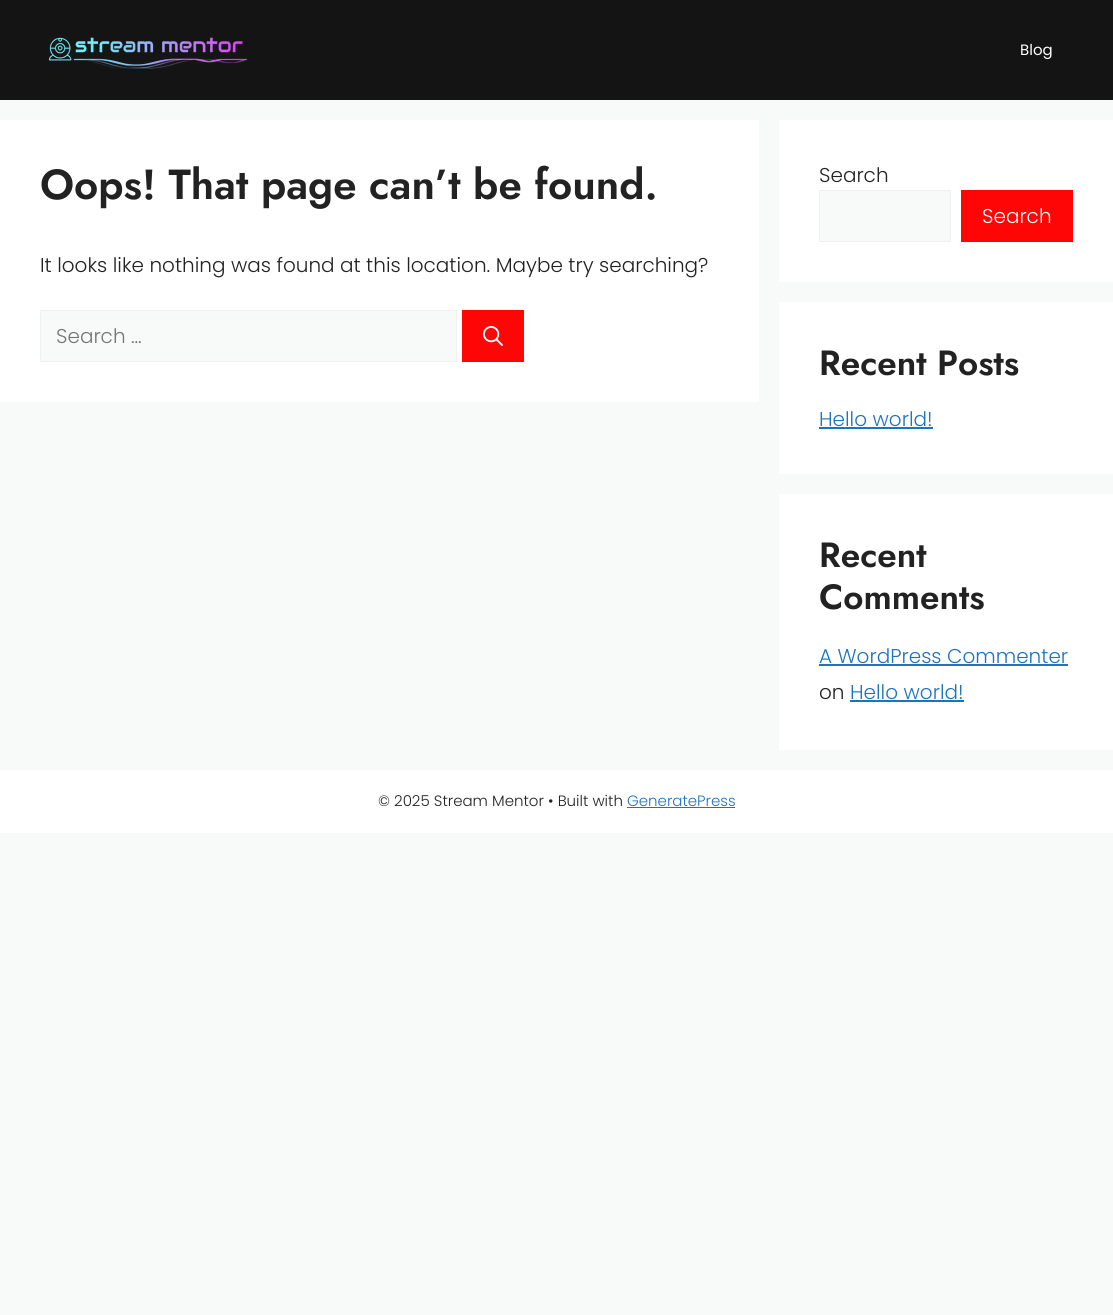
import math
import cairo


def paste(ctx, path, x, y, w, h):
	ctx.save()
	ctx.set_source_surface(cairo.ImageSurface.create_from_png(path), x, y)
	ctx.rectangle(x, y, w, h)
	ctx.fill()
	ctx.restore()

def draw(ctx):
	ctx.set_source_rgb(0.969, 0.973, 0.976)
	ctx.paint()
	ctx.set_source_rgb(0.082, 0.082, 0.082)
	ctx.rectangle(0, 0, 1113, 100)
	ctx.fill()
	paste(ctx, 'media/1.png', 48, 37, 200, 32)
	ctx.select_font_face('Poppins')
	ctx.set_font_size(15)
	ctx.set_source_rgb(1, 1, 1)
	ctx.move_to(1020, 55)
	ctx.show_text('Blog')
	ctx.rectangle(0, 120, 759, 282)
	ctx.fill()
	ctx.select_font_face('Jost SemiBold')
	ctx.set_font_size(42)
	ctx.set_source_rgb(0.133, 0.133, 0.133)
	ctx.move_to(40, 199)
	ctx.show_text('Oops! That page can’t be found.')
	ctx.select_font_face('Poppins Light')
	ctx.set_font_size(20)
	ctx.move_to(40, 272)
	ctx.show_text('It looks like nothing was found at this location. Maybe try searching?')
	ctx.set_source_rgb(0.969, 0.973, 0.976)
	ctx.rectangle(40.5, 310.5, 416, 51)
	ctx.fill_preserve()
	ctx.set_source_rgb(0.941, 0.941, 0.941)
	ctx.set_line_width(1)
	ctx.stroke()
	ctx.set_source_rgb(0.459, 0.459, 0.459)
	ctx.move_to(56, 343)
	ctx.show_text('Search …')
	ctx.set_source_rgb(1, 0.024, 0.024)
	ctx.rectangle(462, 310, 62, 52)
	ctx.fill()
	paste(ctx, 'media/2.png', 483, 326, 20, 20)
	ctx.set_source_rgb(1, 1, 1)
	ctx.rectangle(779, 120, 334, 162)
	ctx.fill()
	ctx.set_source_rgb(0.133, 0.133, 0.133)
	ctx.move_to(819, 182)
	ctx.show_text('Search')
	ctx.set_source_rgb(0.969, 0.973, 0.976)
	ctx.rectangle(819.5, 190.5, 131, 51)
	ctx.fill_preserve()
	ctx.set_source_rgb(0.941, 0.941, 0.941)
	ctx.stroke()
	ctx.set_source_rgb(1, 0.024, 0.024)
	ctx.rectangle(961, 190, 112, 52)
	ctx.fill()
	ctx.set_source_rgb(1, 1, 1)
	ctx.move_to(982, 223)
	ctx.show_text('Search')
	ctx.rectangle(779, 302, 334, 172)
	ctx.fill()
	ctx.select_font_face('Jost SemiBold')
	ctx.set_font_size(35)
	ctx.set_source_rgb(0.133, 0.133, 0.133)
	ctx.move_to(819, 375)
	ctx.show_text('Recent Posts')
	ctx.select_font_face('Poppins Light')
	ctx.set_font_size(20)
	ctx.set_source_rgb(0.118, 0.451, 0.745)
	ctx.move_to(819, 426)
	ctx.show_text('Hello world!')
	ctx.rectangle(819, 427, 114, 2)
	ctx.fill()
	ctx.set_source_rgb(1, 1, 1)
	ctx.rectangle(779, 494, 334, 256)
	ctx.fill()
	ctx.select_font_face('Jost SemiBold')
	ctx.set_font_size(35)
	ctx.set_source_rgb(0.133, 0.133, 0.133)
	ctx.move_to(819, 567)
	ctx.show_text('Recent')
	ctx.move_to(819, 609)
	ctx.show_text('Comments')
	ctx.select_font_face('Poppins Light')
	ctx.set_font_size(20)
	ctx.set_source_rgb(0.118, 0.451, 0.745)
	ctx.move_to(819, 663)
	ctx.show_text('A WordPress Commenter')
	ctx.rectangle(819, 664, 249, 2)
	ctx.fill()
	ctx.set_source_rgb(0.133, 0.133, 0.133)
	ctx.move_to(819, 699)
	ctx.show_text('on')
	ctx.set_source_rgb(0.118, 0.451, 0.745)
	ctx.move_to(850, 699)
	ctx.show_text('Hello world!')
	ctx.rectangle(850, 700, 114, 2)
	ctx.fill()
	ctx.set_source_rgb(1, 1, 1)
	ctx.rectangle(0, 770, 1113, 63)
	ctx.fill()
	ctx.set_font_size(15)
	ctx.set_source_rgb(0.133, 0.133, 0.133)
	ctx.move_to(378, 806)
	ctx.show_text('© 2025 Stream Mentor • Built with')
	ctx.set_source_rgb(0.118, 0.451, 0.745)
	ctx.move_to(627, 806)
	ctx.show_text('GeneratePress')
	ctx.rectangle(627, 807, 108, 1)
	ctx.fill()


surface = cairo.ImageSurface(cairo.FORMAT_RGB24, 1113, 1315)
ctx = cairo.Context(surface)
options = cairo.FontOptions()
options.set_hint_metrics(cairo.HINT_METRICS_OFF)
options.set_hint_style(cairo.HINT_STYLE_NONE)
ctx.set_font_options(options)
ctx.set_miter_limit(4)
draw(ctx)
surface.write_to_png('image.png')
